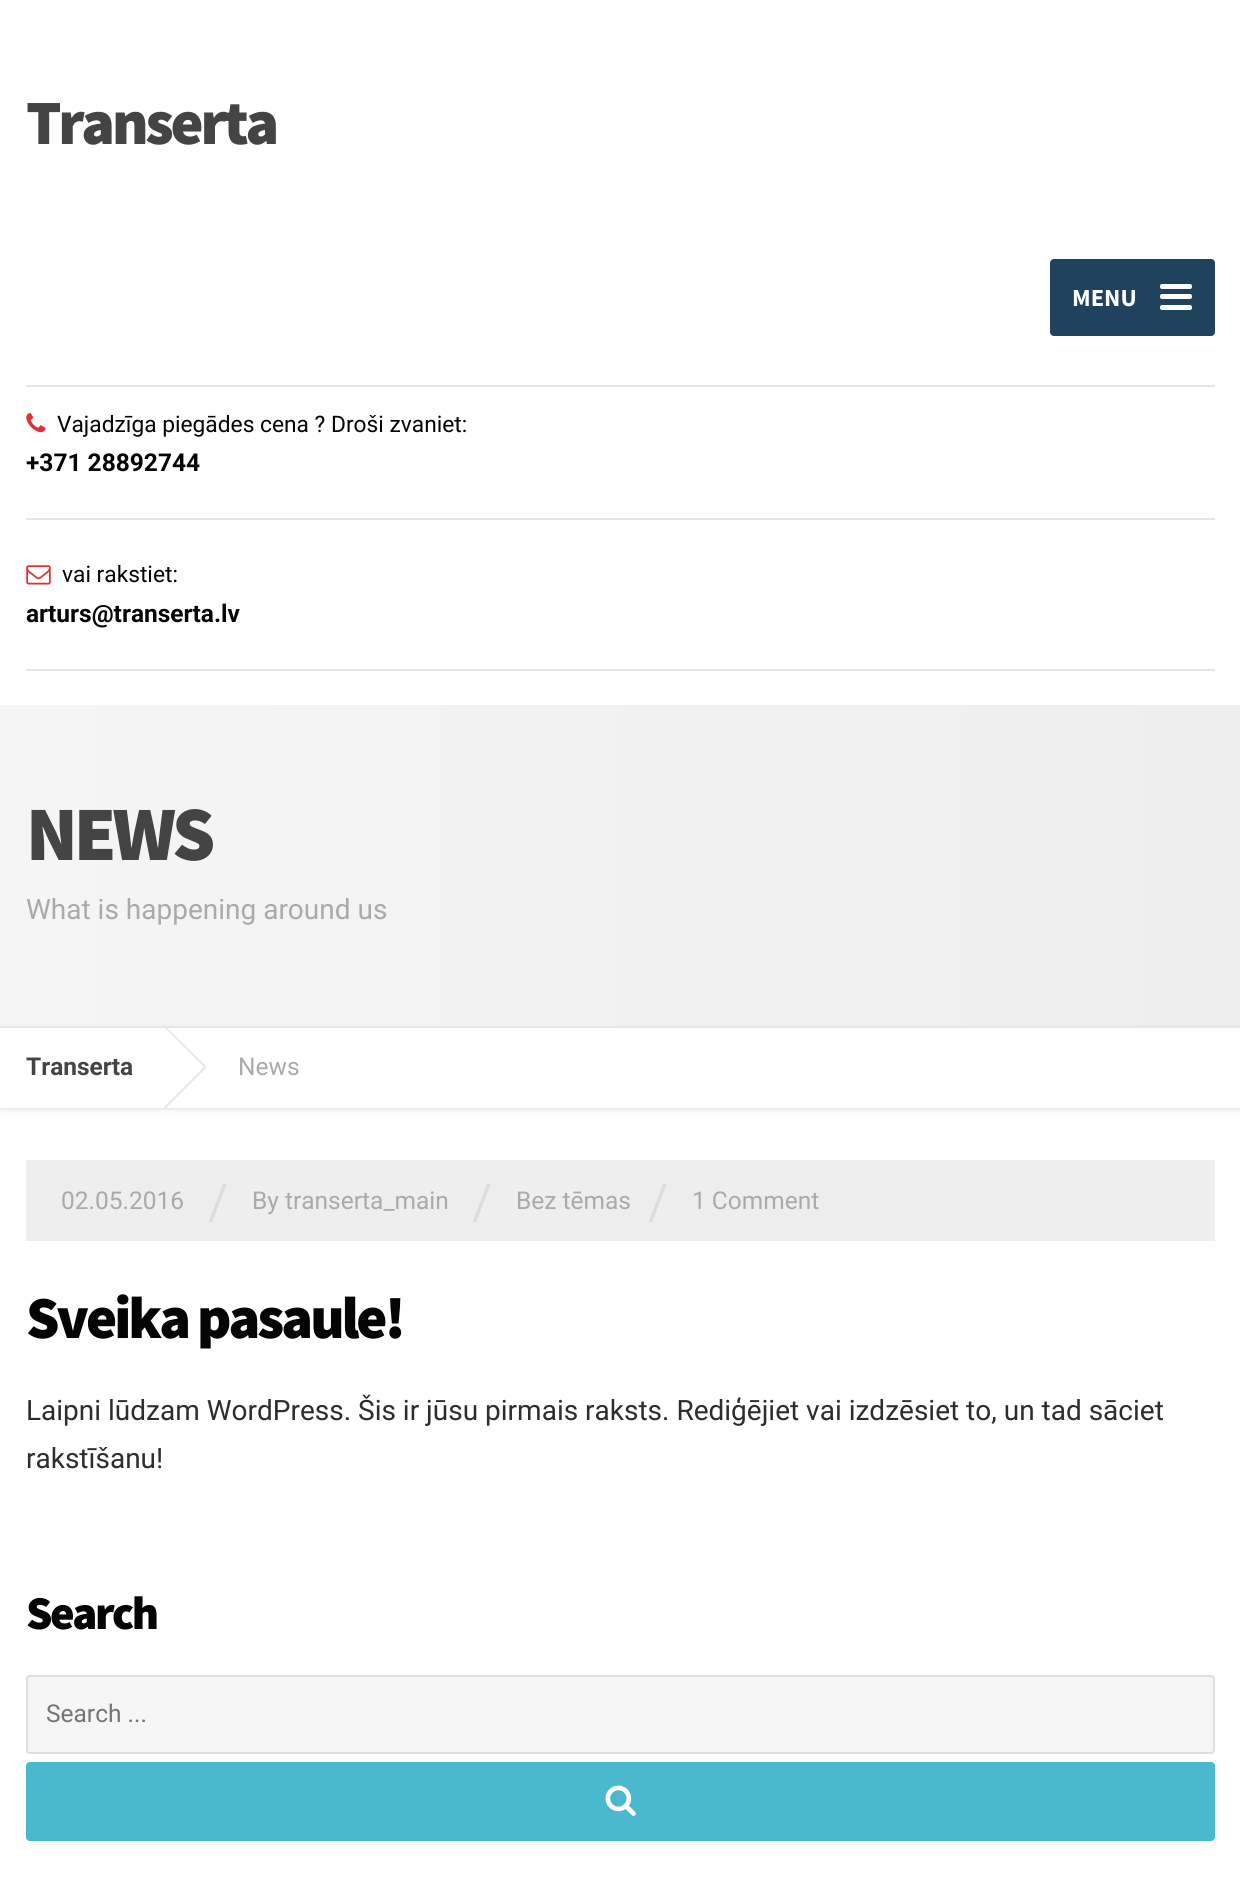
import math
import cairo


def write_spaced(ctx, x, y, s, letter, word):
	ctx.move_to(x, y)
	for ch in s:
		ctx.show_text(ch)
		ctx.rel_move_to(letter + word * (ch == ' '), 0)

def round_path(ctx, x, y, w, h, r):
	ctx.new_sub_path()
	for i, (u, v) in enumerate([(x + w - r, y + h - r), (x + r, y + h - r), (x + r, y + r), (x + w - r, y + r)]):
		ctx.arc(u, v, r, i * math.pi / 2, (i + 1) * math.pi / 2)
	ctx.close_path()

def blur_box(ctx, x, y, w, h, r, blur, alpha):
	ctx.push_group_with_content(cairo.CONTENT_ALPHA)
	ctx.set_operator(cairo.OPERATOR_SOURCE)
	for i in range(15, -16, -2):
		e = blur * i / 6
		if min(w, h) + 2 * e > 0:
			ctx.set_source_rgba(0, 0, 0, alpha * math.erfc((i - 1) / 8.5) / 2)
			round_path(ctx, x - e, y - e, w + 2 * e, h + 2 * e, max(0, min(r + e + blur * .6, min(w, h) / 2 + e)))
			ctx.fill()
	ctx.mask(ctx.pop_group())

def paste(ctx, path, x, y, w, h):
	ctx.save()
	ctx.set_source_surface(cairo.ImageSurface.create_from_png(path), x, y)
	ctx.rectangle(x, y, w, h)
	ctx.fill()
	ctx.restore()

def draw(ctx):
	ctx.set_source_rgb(1, 1, 1)
	ctx.paint()
	ctx.set_source_rgb(0.902, 0.902, 0.902)
	ctx.rectangle(26, 385, 1189, 2)
	ctx.fill()
	ctx.select_font_face('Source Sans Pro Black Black')
	ctx.set_font_size(63)
	ctx.set_source_rgb(0.267, 0.267, 0.267)
	write_spaced(ctx, 26, 144, 'Transerta', -3.25, 0)
	ctx.set_source_rgb(0.122, 0.259, 0.365)
	round_path(ctx, 1050, 259, 165, 77, 4)
	ctx.fill()
	ctx.select_font_face('Source Sans Pro', cairo.FONT_SLANT_NORMAL, cairo.FONT_WEIGHT_BOLD)
	ctx.set_font_size(24.5)
	ctx.set_source_rgb(1, 1, 1)
	ctx.move_to(1072, 306)
	ctx.show_text('MENU')
	round_path(ctx, 1160, 284, 32, 5, 2)
	ctx.fill()
	round_path(ctx, 1160, 294, 32, 5, 2)
	ctx.fill()
	round_path(ctx, 1160, 305, 32, 5, 2)
	ctx.fill()
	ctx.set_source_rgb(0.902, 0.902, 0.902)
	ctx.rectangle(26, 518, 1189, 2)
	ctx.fill()
	paste(ctx, 'media/1.png', 26, 413, 20, 20)
	ctx.select_font_face('Roboto')
	ctx.set_font_size(22.75)
	ctx.set_source_rgb(0.02, 0.02, 0.02)
	ctx.move_to(57, 432)
	ctx.show_text('Vajadzīga piegādes cena ? Droši zvaniet:')
	ctx.select_font_face('Roboto', cairo.FONT_SLANT_NORMAL, cairo.FONT_WEIGHT_BOLD)
	ctx.set_font_size(24.5)
	ctx.move_to(26, 471)
	ctx.show_text('+371 28892744')
	ctx.set_source_rgb(0.902, 0.902, 0.902)
	ctx.rectangle(26, 669, 1189, 2)
	ctx.fill()
	paste(ctx, 'media/2.png', 26, 565, 25, 20)
	ctx.select_font_face('Roboto')
	ctx.set_font_size(22.75)
	ctx.set_source_rgb(0.02, 0.02, 0.02)
	ctx.move_to(62, 582)
	ctx.show_text('vai rakstiet:')
	ctx.select_font_face('Roboto', cairo.FONT_SLANT_NORMAL, cairo.FONT_WEIGHT_BOLD)
	ctx.set_font_size(24.5)
	ctx.move_to(26, 622)
	ctx.show_text('arturs@transerta.lv')
	gradient = cairo.LinearGradient(0, 865, 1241, 865)
	gradient.add_color_stop_rgba(0, 0.961, 0.961, 0.961, 1)
	gradient.add_color_stop_rgba(1, 0.933, 0.933, 0.933, 1)
	ctx.set_source(gradient)
	ctx.rectangle(0, 705, 1240, 321)
	ctx.fill()
	ctx.select_font_face('Source Sans Pro Black Black')
	ctx.set_font_size(77)
	ctx.set_source_rgb(0.267, 0.267, 0.267)
	write_spaced(ctx, 26, 860, 'NEWS', -4, 0)
	ctx.select_font_face('Roboto')
	ctx.set_font_size(28)
	ctx.set_source_rgb(0.667, 0.667, 0.667)
	ctx.move_to(26, 919)
	ctx.show_text('What is happening around us')
	ctx.set_source_rgb(0.902, 0.902, 0.902)
	blur_box(ctx, 0, 1027, 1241, 83, 0, 2, 1)
	ctx.set_source_rgb(1, 1, 1)
	ctx.rectangle(0, 1028, 1240, 80)
	ctx.fill()
	ctx.set_source_rgb(0.902, 0.902, 0.902)
	ctx.rectangle(0, 1026, 1240, 2)
	ctx.fill()
	ctx.select_font_face('Roboto', cairo.FONT_SLANT_NORMAL, cairo.FONT_WEIGHT_BOLD)
	ctx.set_font_size(24.5)
	ctx.set_source_rgb(0.267, 0.267, 0.267)
	ctx.move_to(26, 1075)
	ctx.show_text('Transerta')
	ctx.set_source_rgb(0.902, 0.902, 0.902)
	ctx.new_path()
	ctx.move_to(164, 1027)
	ctx.line_to(165, 1026)
	ctx.line_to(206, 1066)
	ctx.line_to(205, 1068)
	ctx.close_path()
	ctx.fill()
	ctx.new_path()
	ctx.move_to(205, 1066)
	ctx.line_to(206, 1068)
	ctx.line_to(165, 1109)
	ctx.line_to(164, 1107)
	ctx.close_path()
	ctx.fill()
	ctx.select_font_face('Roboto')
	ctx.set_source_rgb(0.667, 0.667, 0.667)
	ctx.move_to(238, 1075)
	ctx.show_text('News')
	ctx.set_source_rgb(0.933, 0.933, 0.933)
	ctx.rectangle(26, 1160, 1189, 81)
	ctx.fill()
	ctx.set_source_rgb(0.667, 0.667, 0.667)
	ctx.move_to(61, 1209)
	ctx.show_text('02.05.2016')
	ctx.set_font_size(49)
	ctx.set_source_rgb(0.867, 0.867, 0.867)
	ctx.move_to(208, 1219)
	ctx.show_text('/')
	ctx.set_font_size(24.5)
	ctx.set_source_rgb(0.667, 0.667, 0.667)
	ctx.move_to(252, 1209)
	ctx.show_text('By transerta_main')
	ctx.set_font_size(49)
	ctx.set_source_rgb(0.867, 0.867, 0.867)
	ctx.move_to(472, 1219)
	ctx.show_text('/')
	ctx.set_font_size(24.5)
	ctx.set_source_rgb(0.667, 0.667, 0.667)
	ctx.move_to(516, 1209)
	ctx.show_text('Bez tēmas')
	ctx.set_font_size(49)
	ctx.set_source_rgb(0.867, 0.867, 0.867)
	ctx.move_to(648, 1219)
	ctx.show_text('/')
	ctx.set_font_size(24.5)
	ctx.set_source_rgb(0.667, 0.667, 0.667)
	ctx.move_to(692, 1209)
	ctx.show_text('1 Comment')
	ctx.select_font_face('Source Sans Pro Black Black')
	ctx.set_font_size(59.5)
	ctx.set_source_rgb(0.02, 0.02, 0.02)
	write_spaced(ctx, 26, 1338, 'Sveika pasaule!', -3, 0)
	ctx.select_font_face('Roboto')
	ctx.set_font_size(28)
	ctx.set_source_rgb(0.176, 0.176, 0.176)
	ctx.move_to(26, 1420)
	ctx.show_text('Laipni lūdzam WordPress. Šis ir jūsu pirmais raksts. Rediģējiet vai izdzēsiet to, un tad sāciet')
	ctx.move_to(26, 1468)
	ctx.show_text('rakstīšanu!')
	ctx.select_font_face('Source Sans Pro Black Black')
	ctx.set_font_size(47)
	ctx.set_source_rgb(0.02, 0.02, 0.02)
	write_spaced(ctx, 26, 1629, 'Search', -2.5, 0)
	ctx.set_source_rgb(0.961, 0.961, 0.961)
	round_path(ctx, 26, 1675, 1189, 79, 4)
	ctx.fill()
	round_path(ctx, 27, 1676, 1187, 77, 3)
	ctx.set_source_rgba(0, 0, 0, 0.1)
	ctx.stroke()
	ctx.select_font_face('Roboto')
	ctx.set_font_size(24.5)
	ctx.set_source_rgb(0.459, 0.459, 0.459)
	ctx.move_to(46, 1722)
	ctx.show_text('Search ...')
	ctx.set_source_rgb(0.29, 0.725, 0.812)
	round_path(ctx, 26, 1762, 1189, 79, 4)
	ctx.fill()
	paste(ctx, 'media/3.png', 605, 1785, 31, 31)


surface = cairo.ImageSurface(cairo.FORMAT_RGB24, 1240, 1879)
ctx = cairo.Context(surface)
options = cairo.FontOptions()
options.set_hint_metrics(cairo.HINT_METRICS_OFF)
options.set_hint_style(cairo.HINT_STYLE_NONE)
ctx.set_font_options(options)
ctx.set_miter_limit(4)
draw(ctx)
surface.write_to_png('image.png')
